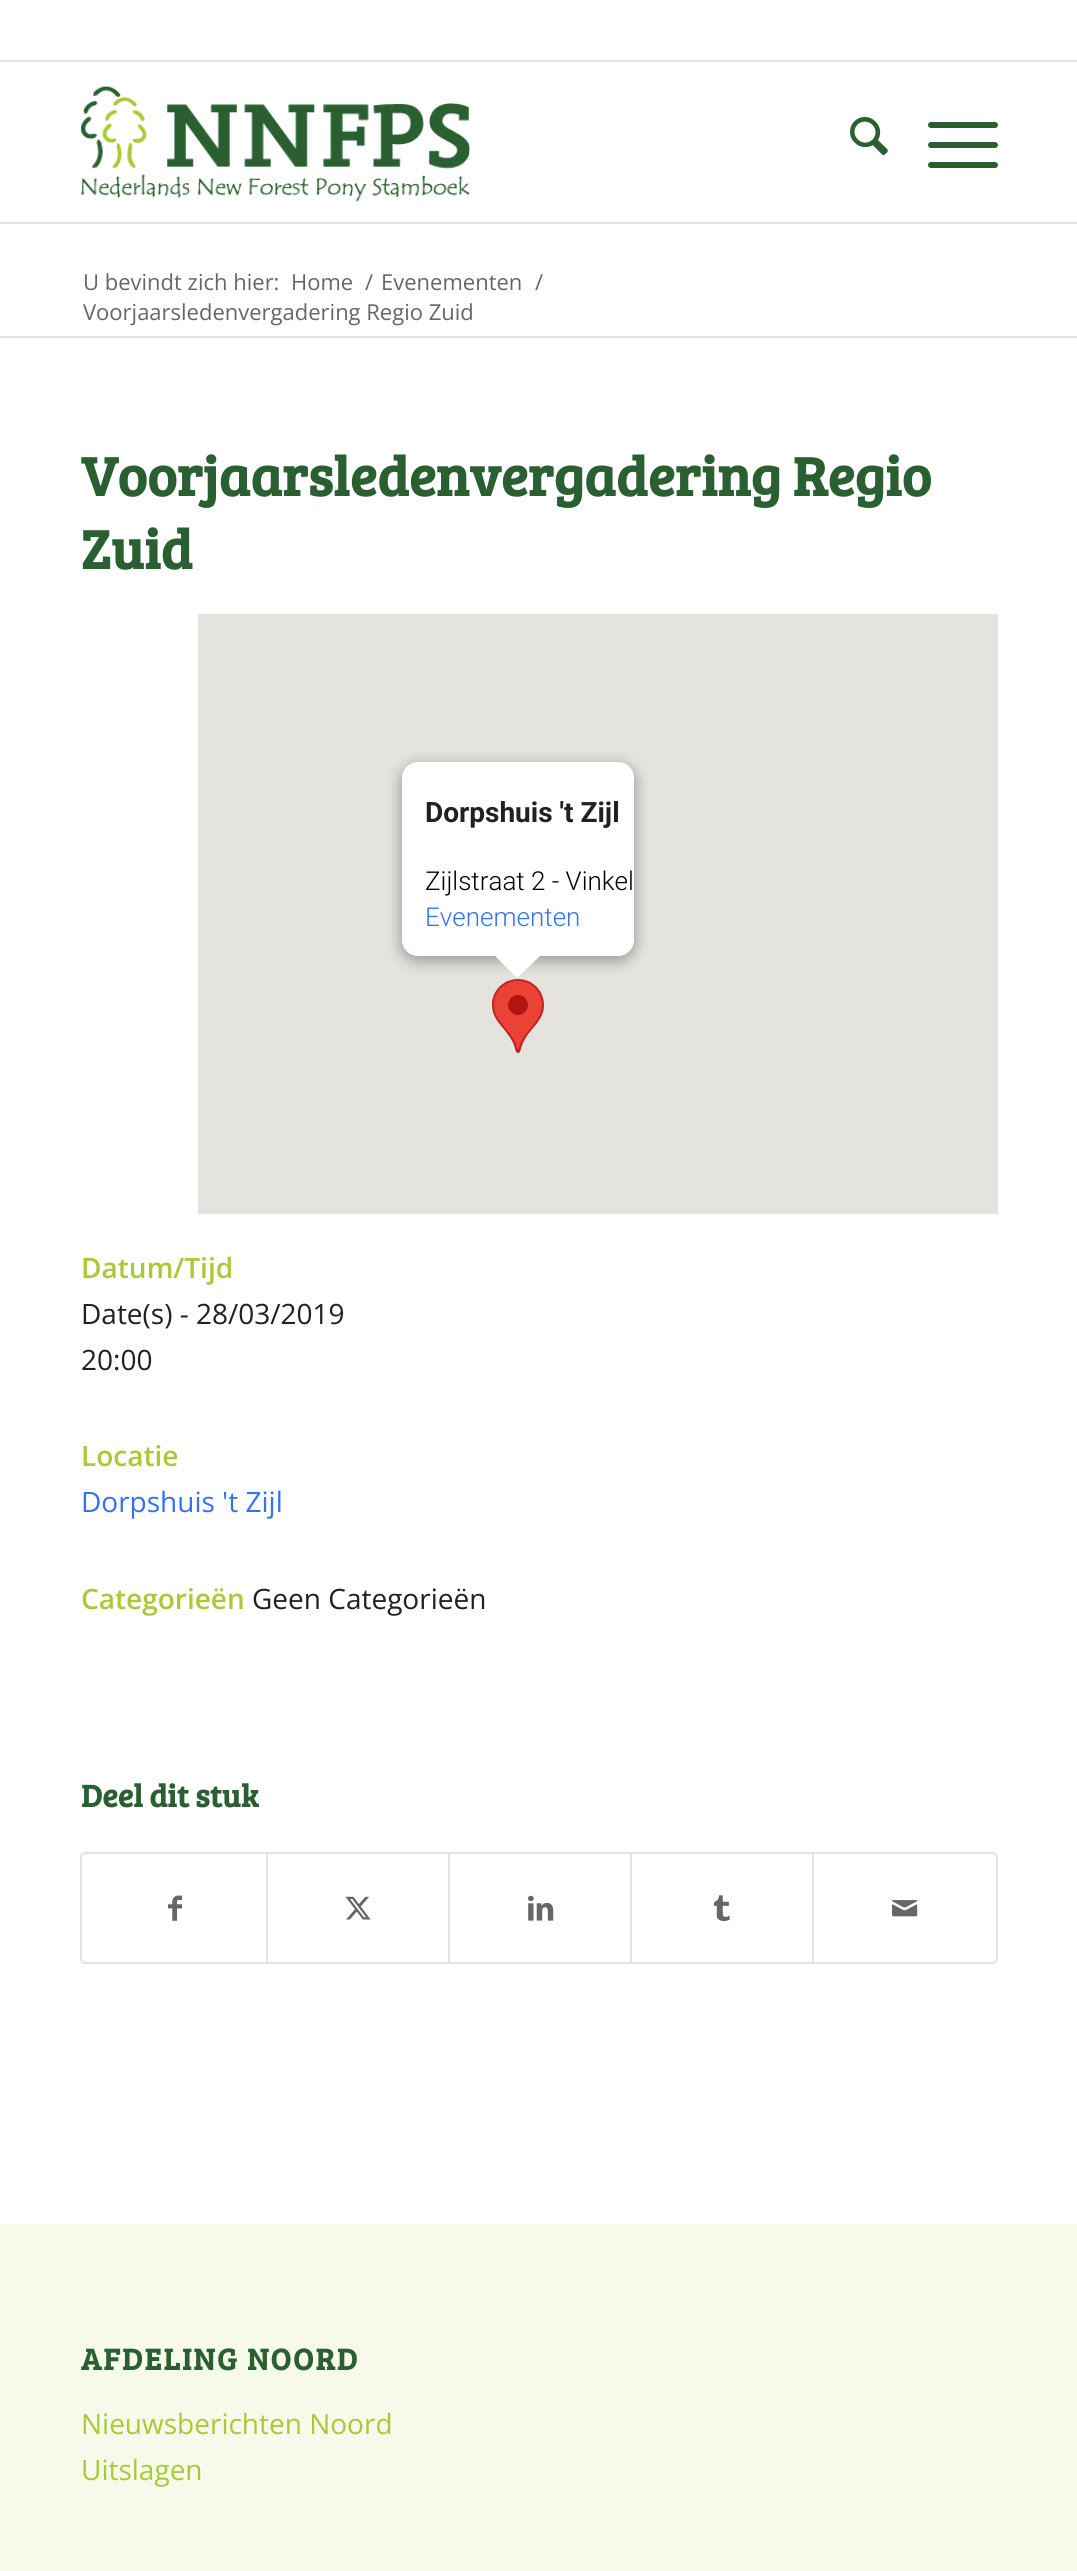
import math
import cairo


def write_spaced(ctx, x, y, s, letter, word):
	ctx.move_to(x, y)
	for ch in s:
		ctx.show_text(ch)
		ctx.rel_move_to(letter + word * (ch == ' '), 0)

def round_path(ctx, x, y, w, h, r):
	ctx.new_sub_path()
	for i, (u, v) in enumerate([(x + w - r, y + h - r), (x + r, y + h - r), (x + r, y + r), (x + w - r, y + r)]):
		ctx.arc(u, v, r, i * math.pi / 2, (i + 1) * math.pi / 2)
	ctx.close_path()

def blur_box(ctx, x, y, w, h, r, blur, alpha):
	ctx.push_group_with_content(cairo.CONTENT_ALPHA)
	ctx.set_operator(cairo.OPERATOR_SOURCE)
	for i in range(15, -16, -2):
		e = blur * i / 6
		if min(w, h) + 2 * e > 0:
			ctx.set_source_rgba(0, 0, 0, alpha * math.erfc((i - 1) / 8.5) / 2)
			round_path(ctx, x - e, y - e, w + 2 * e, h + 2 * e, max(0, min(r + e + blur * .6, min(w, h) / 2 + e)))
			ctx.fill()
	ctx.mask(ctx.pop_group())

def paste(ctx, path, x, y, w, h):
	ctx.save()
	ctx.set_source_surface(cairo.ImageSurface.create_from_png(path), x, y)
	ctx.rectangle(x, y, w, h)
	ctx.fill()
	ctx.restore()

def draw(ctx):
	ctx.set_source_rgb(1, 1, 1)
	ctx.paint()
	ctx.set_source_rgb(0.89, 0.89, 0.89)
	ctx.rectangle(0, 60, 1077, 2)
	ctx.fill()
	ctx.rectangle(0, 222, 1077, 2)
	ctx.fill()
	paste(ctx, 'media/1.png', 81, 86, 389, 116)
	paste(ctx, 'media/2.png', 850, 117, 38, 38)
	ctx.set_source_rgb(0.161, 0.373, 0.192)
	round_path(ctx, 928, 142, 70, 6, 3)
	ctx.fill()
	round_path(ctx, 928, 122, 70, 6, 3)
	ctx.fill()
	round_path(ctx, 928, 162, 70, 6, 3)
	ctx.fill()
	ctx.select_font_face('Open Sans')
	ctx.set_font_size(22)
	ctx.set_source_rgb(0.4, 0.4, 0.4)
	for x, y, s in [
		(83, 290, 'U bevindt zich hier:'),
		(291, 290, 'Home'),
		(365, 290, '/'),
		(381, 290, 'Evenementen'),
		(535, 290, '/'),
		(83, 320, 'Voorjaarsledenvergadering Regio Zuid'),
	]:
		ctx.move_to(x, y)
		ctx.show_text(s)
	ctx.set_source_rgb(0.89, 0.89, 0.89)
	ctx.rectangle(0, 336, 1077, 2)
	ctx.fill()
	ctx.select_font_face('Bree Serif', cairo.FONT_SLANT_NORMAL, cairo.FONT_WEIGHT_BOLD)
	ctx.set_font_size(56)
	ctx.set_source_rgb(0.161, 0.373, 0.192)
	ctx.move_to(81, 496)
	ctx.show_text('Voorjaarsledenvergadering Regio')
	ctx.move_to(81, 569)
	ctx.show_text('Zuid')
	ctx.set_source_rgb(0.898, 0.89, 0.875)
	ctx.rectangle(198, 614, 800, 600)
	ctx.fill()
	paste(ctx, 'media/3.png', 492, 979, 52, 74)
	ctx.set_source_rgb(0, 0, 0)
	blur_box(ctx, 400, 764, 236, 198, 18, 7, 0.3)
	ctx.set_source_rgb(1, 1, 1)
	round_path(ctx, 402, 762, 232, 194, 16)
	ctx.fill()
	ctx.select_font_face('Roboto', cairo.FONT_SLANT_NORMAL, cairo.FONT_WEIGHT_BOLD)
	ctx.set_font_size(28)
	ctx.set_source_rgb(0.129, 0.129, 0.129)
	ctx.move_to(425, 822)
	ctx.show_text('Dorpshuis \'t Zijl')
	ctx.select_font_face('Roboto Light')
	ctx.set_font_size(26)
	ctx.set_source_rgb(0, 0, 0)
	ctx.move_to(425, 890)
	ctx.show_text('Zijlstraat 2 - Vinkel')
	ctx.set_source_rgb(0.2, 0.447, 0.941)
	ctx.move_to(425, 926)
	ctx.show_text('Evenementen')
	ctx.set_source_rgb(1, 1, 1)
	ctx.new_path()
	ctx.move_to(494, 954)
	ctx.line_to(494, 955)
	ctx.line_to(517, 978)
	ctx.line_to(542, 954)
	ctx.close_path()
	ctx.fill()
	ctx.select_font_face('Open Sans SemiBold')
	ctx.set_font_size(28)
	ctx.set_source_rgb(0.663, 0.788, 0.208)
	ctx.move_to(81, 1278)
	ctx.show_text('Datum/Tijd')
	ctx.select_font_face('Open Sans')
	ctx.set_source_rgb(0.129, 0.129, 0.129)
	ctx.move_to(81, 1324)
	ctx.show_text('Date(s) - 28/03/2019')
	ctx.move_to(81, 1370)
	ctx.show_text('20:00')
	ctx.select_font_face('Open Sans SemiBold')
	ctx.set_source_rgb(0.663, 0.788, 0.208)
	ctx.move_to(81, 1466)
	ctx.show_text('Locatie')
	ctx.select_font_face('Open Sans')
	ctx.set_source_rgb(0.2, 0.447, 0.941)
	ctx.move_to(81, 1512)
	ctx.show_text('Dorpshuis \'t Zijl')
	ctx.select_font_face('Open Sans SemiBold')
	ctx.set_source_rgb(0.663, 0.788, 0.208)
	ctx.move_to(81, 1609)
	ctx.show_text('Categorieën')
	ctx.select_font_face('Open Sans')
	ctx.set_source_rgb(0.129, 0.129, 0.129)
	ctx.move_to(252, 1609)
	ctx.show_text('Geen Categorieën')
	ctx.select_font_face('Bree Serif', cairo.FONT_SLANT_NORMAL, cairo.FONT_WEIGHT_BOLD)
	ctx.set_font_size(32)
	ctx.set_source_rgb(0.161, 0.373, 0.192)
	ctx.move_to(81, 1807)
	ctx.show_text('Deel dit stuk')
	round_path(ctx, 81, 1853, 916, 110, 5)
	ctx.set_source_rgb(0.89, 0.89, 0.89)
	ctx.stroke()
	paste(ctx, 'media/4.png', 168, 1895, 14, 26)
	ctx.rectangle(266, 1854, 2, 108)
	ctx.fill()
	paste(ctx, 'media/5.png', 345, 1896, 26, 24)
	ctx.rectangle(448, 1854, 2, 108)
	ctx.fill()
	paste(ctx, 'media/6.png', 528, 1895, 26, 26)
	ctx.rectangle(630, 1854, 2, 108)
	ctx.fill()
	paste(ctx, 'media/7.png', 714, 1895, 16, 27)
	ctx.rectangle(812, 1854, 2, 108)
	ctx.fill()
	paste(ctx, 'media/8.png', 892, 1900, 26, 17)
	ctx.set_source_rgb(0.965, 0.976, 0.918)
	ctx.rectangle(0, 2224, 1077, 347)
	ctx.fill()
	ctx.set_font_size(30.75)
	ctx.set_source_rgb(0.161, 0.373, 0.192)
	write_spaced(ctx, 81, 2370, 'AFDELING NOORD', 2, 0)
	ctx.select_font_face('Open Sans')
	ctx.set_font_size(28)
	ctx.set_source_rgb(0.663, 0.788, 0.208)
	ctx.move_to(81, 2434)
	ctx.show_text('Nieuwsberichten Noord')
	ctx.move_to(81, 2480)
	ctx.show_text('Uitslagen')


surface = cairo.ImageSurface(cairo.FORMAT_RGB24, 1077, 2571)
ctx = cairo.Context(surface)
options = cairo.FontOptions()
options.set_hint_metrics(cairo.HINT_METRICS_OFF)
options.set_hint_style(cairo.HINT_STYLE_NONE)
ctx.set_font_options(options)
ctx.set_miter_limit(4)
draw(ctx)
surface.write_to_png('image.png')
